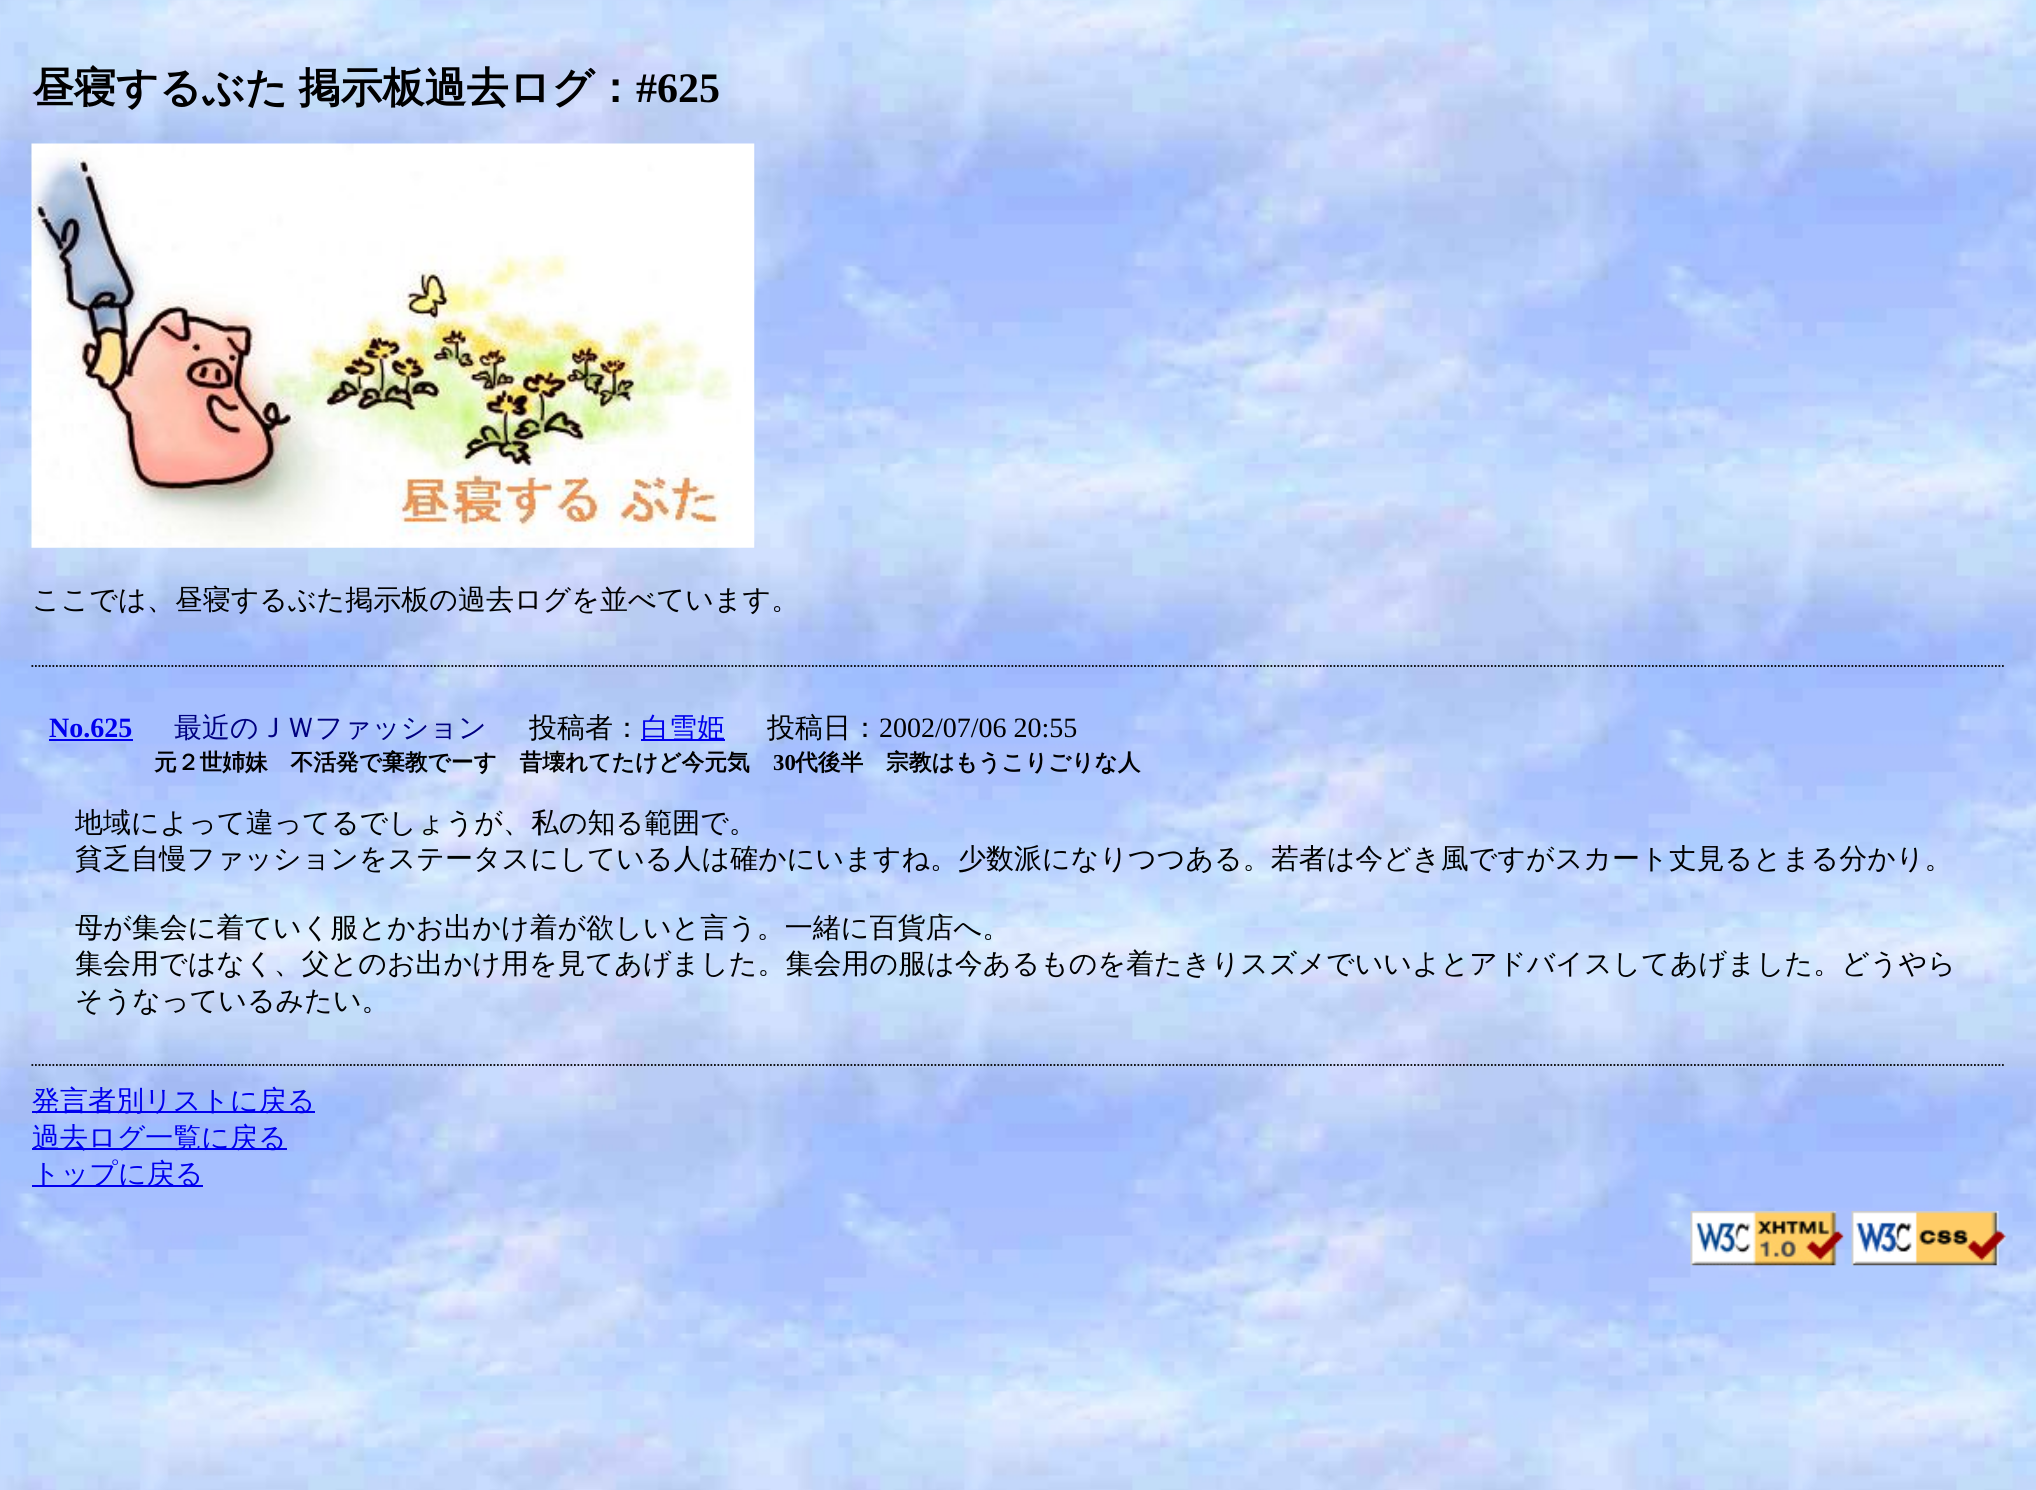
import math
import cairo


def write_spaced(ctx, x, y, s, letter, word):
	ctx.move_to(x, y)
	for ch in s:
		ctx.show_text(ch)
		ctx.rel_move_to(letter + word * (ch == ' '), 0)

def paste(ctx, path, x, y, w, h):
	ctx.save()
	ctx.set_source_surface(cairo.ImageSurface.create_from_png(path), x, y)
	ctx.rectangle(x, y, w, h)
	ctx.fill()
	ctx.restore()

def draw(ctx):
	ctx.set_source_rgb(1, 1, 1)
	ctx.paint()
	paste(ctx, 'media/1.png', 0, 0, 2036, 1490)
	ctx.select_font_face('WenQuanYi Zen Hei', cairo.FONT_SLANT_NORMAL, cairo.FONT_WEIGHT_BOLD)
	ctx.set_font_size(42)
	ctx.set_source_rgb(0, 0, 0)
	write_spaced(ctx, 32, 102, '昼寝するぶた 掲示板過去ログ', 0, -2)
	ctx.move_to(594, 102)
	ctx.show_text('：')
	ctx.select_font_face('Liberation Serif', cairo.FONT_SLANT_NORMAL, cairo.FONT_WEIGHT_BOLD)
	ctx.move_to(636, 102)
	ctx.show_text('#625')
	ctx.new_path()
	ctx.move_to(31.5, 666)
	ctx.line_to(2005.5, 666)
	ctx.set_line_width(1.8)
	ctx.set_dash([1.75, 1.75])
	ctx.stroke()
	paste(ctx, 'media/2.png', 31, 143, 724, 405)
	ctx.select_font_face('WenQuanYi Zen Hei Medium')
	ctx.set_font_size(28)
	ctx.move_to(32, 609)
	ctx.show_text('ここでは、昼寝するぶた掲示板の過去ログを並べています。')
	ctx.select_font_face('Liberation Serif', cairo.FONT_SLANT_NORMAL, cairo.FONT_WEIGHT_BOLD)
	ctx.set_source_rgb(0, 0, 0.933)
	ctx.move_to(49, 737)
	ctx.show_text('No.625')
	ctx.rectangle(49, 739, 84, 2)
	ctx.fill()
	ctx.select_font_face('WenQuanYi Zen Hei Medium')
	ctx.set_source_rgb(0, 0, 0.502)
	ctx.move_to(174, 737)
	ctx.show_text('最近のＪＷファッション')
	ctx.set_source_rgb(0, 0, 0)
	ctx.move_to(529, 737)
	ctx.show_text('投稿者：')
	ctx.set_source_rgb(0, 0, 0.933)
	ctx.rectangle(641, 739, 84, 2)
	ctx.fill()
	ctx.move_to(641, 737)
	ctx.show_text('白雪姫')
	ctx.set_source_rgb(0, 0, 0)
	ctx.move_to(767, 737)
	ctx.show_text('投稿日：')
	ctx.select_font_face('Liberation Serif')
	ctx.move_to(879, 737)
	ctx.show_text('2002/07/06 20:55')
	ctx.select_font_face('WenQuanYi Zen Hei', cairo.FONT_SLANT_NORMAL, cairo.FONT_WEIGHT_BOLD)
	ctx.set_font_size(22.75)
	ctx.move_to(154, 770)
	ctx.show_text('元２世姉妹　不活発で棄教でーす　昔壊れてたけど今元気')
	ctx.select_font_face('Liberation Serif', cairo.FONT_SLANT_NORMAL, cairo.FONT_WEIGHT_BOLD)
	ctx.move_to(773, 770)
	ctx.show_text('30')
	ctx.select_font_face('WenQuanYi Zen Hei', cairo.FONT_SLANT_NORMAL, cairo.FONT_WEIGHT_BOLD)
	ctx.move_to(795, 770)
	ctx.show_text('代後半　宗教はもうこりごりな人')
	ctx.select_font_face('WenQuanYi Zen Hei Medium')
	ctx.set_font_size(28)
	for x, y, s in [
		(75, 832, '地域によって違ってるでしょうが、私の知る範囲で。'),
		(75, 868, '貧乏自慢ファッションをステータスにしている人は確かにいますね。少数派になりつつある。若者は今どき風ですがスカート丈見るとまる分かり。'),
		(75, 937, '母が集会に着ていく服とかお出かけ着が欲しいと言う。一緒に百貨店へ。'),
		(75, 973, '集会用ではなく、父とのお出かけ用を見てあげました。集会用の服は今あるものを着たきりスズメでいいよとアドバイスしてあげました。どうやら'),
		(75, 1010, 'そうなっているみたい。'),
	]:
		ctx.move_to(x, y)
		ctx.show_text(s)
	ctx.new_path()
	ctx.move_to(31.5, 1065)
	ctx.line_to(2005.5, 1065)
	ctx.stroke()
	ctx.set_source_rgb(0, 0, 0.933)
	ctx.rectangle(32, 1111, 283, 2)
	ctx.fill()
	ctx.move_to(32, 1110)
	ctx.show_text('発言者別リストに戻る')
	ctx.rectangle(32, 1148, 255, 2)
	ctx.fill()
	ctx.move_to(32, 1147)
	ctx.show_text('過去ログ一覧に戻る')
	ctx.rectangle(32, 1185, 171, 2)
	ctx.fill()
	ctx.move_to(32, 1183)
	ctx.show_text('トップに戻る')
	paste(ctx, 'media/3.png', 1690, 1211, 155, 55)
	paste(ctx, 'media/4.png', 1851, 1211, 155, 55)


surface = cairo.ImageSurface(cairo.FORMAT_RGB24, 2036, 1490)
ctx = cairo.Context(surface)
options = cairo.FontOptions()
options.set_hint_metrics(cairo.HINT_METRICS_OFF)
options.set_hint_style(cairo.HINT_STYLE_NONE)
ctx.set_font_options(options)
ctx.set_miter_limit(4)
draw(ctx)
surface.write_to_png('image.png')
